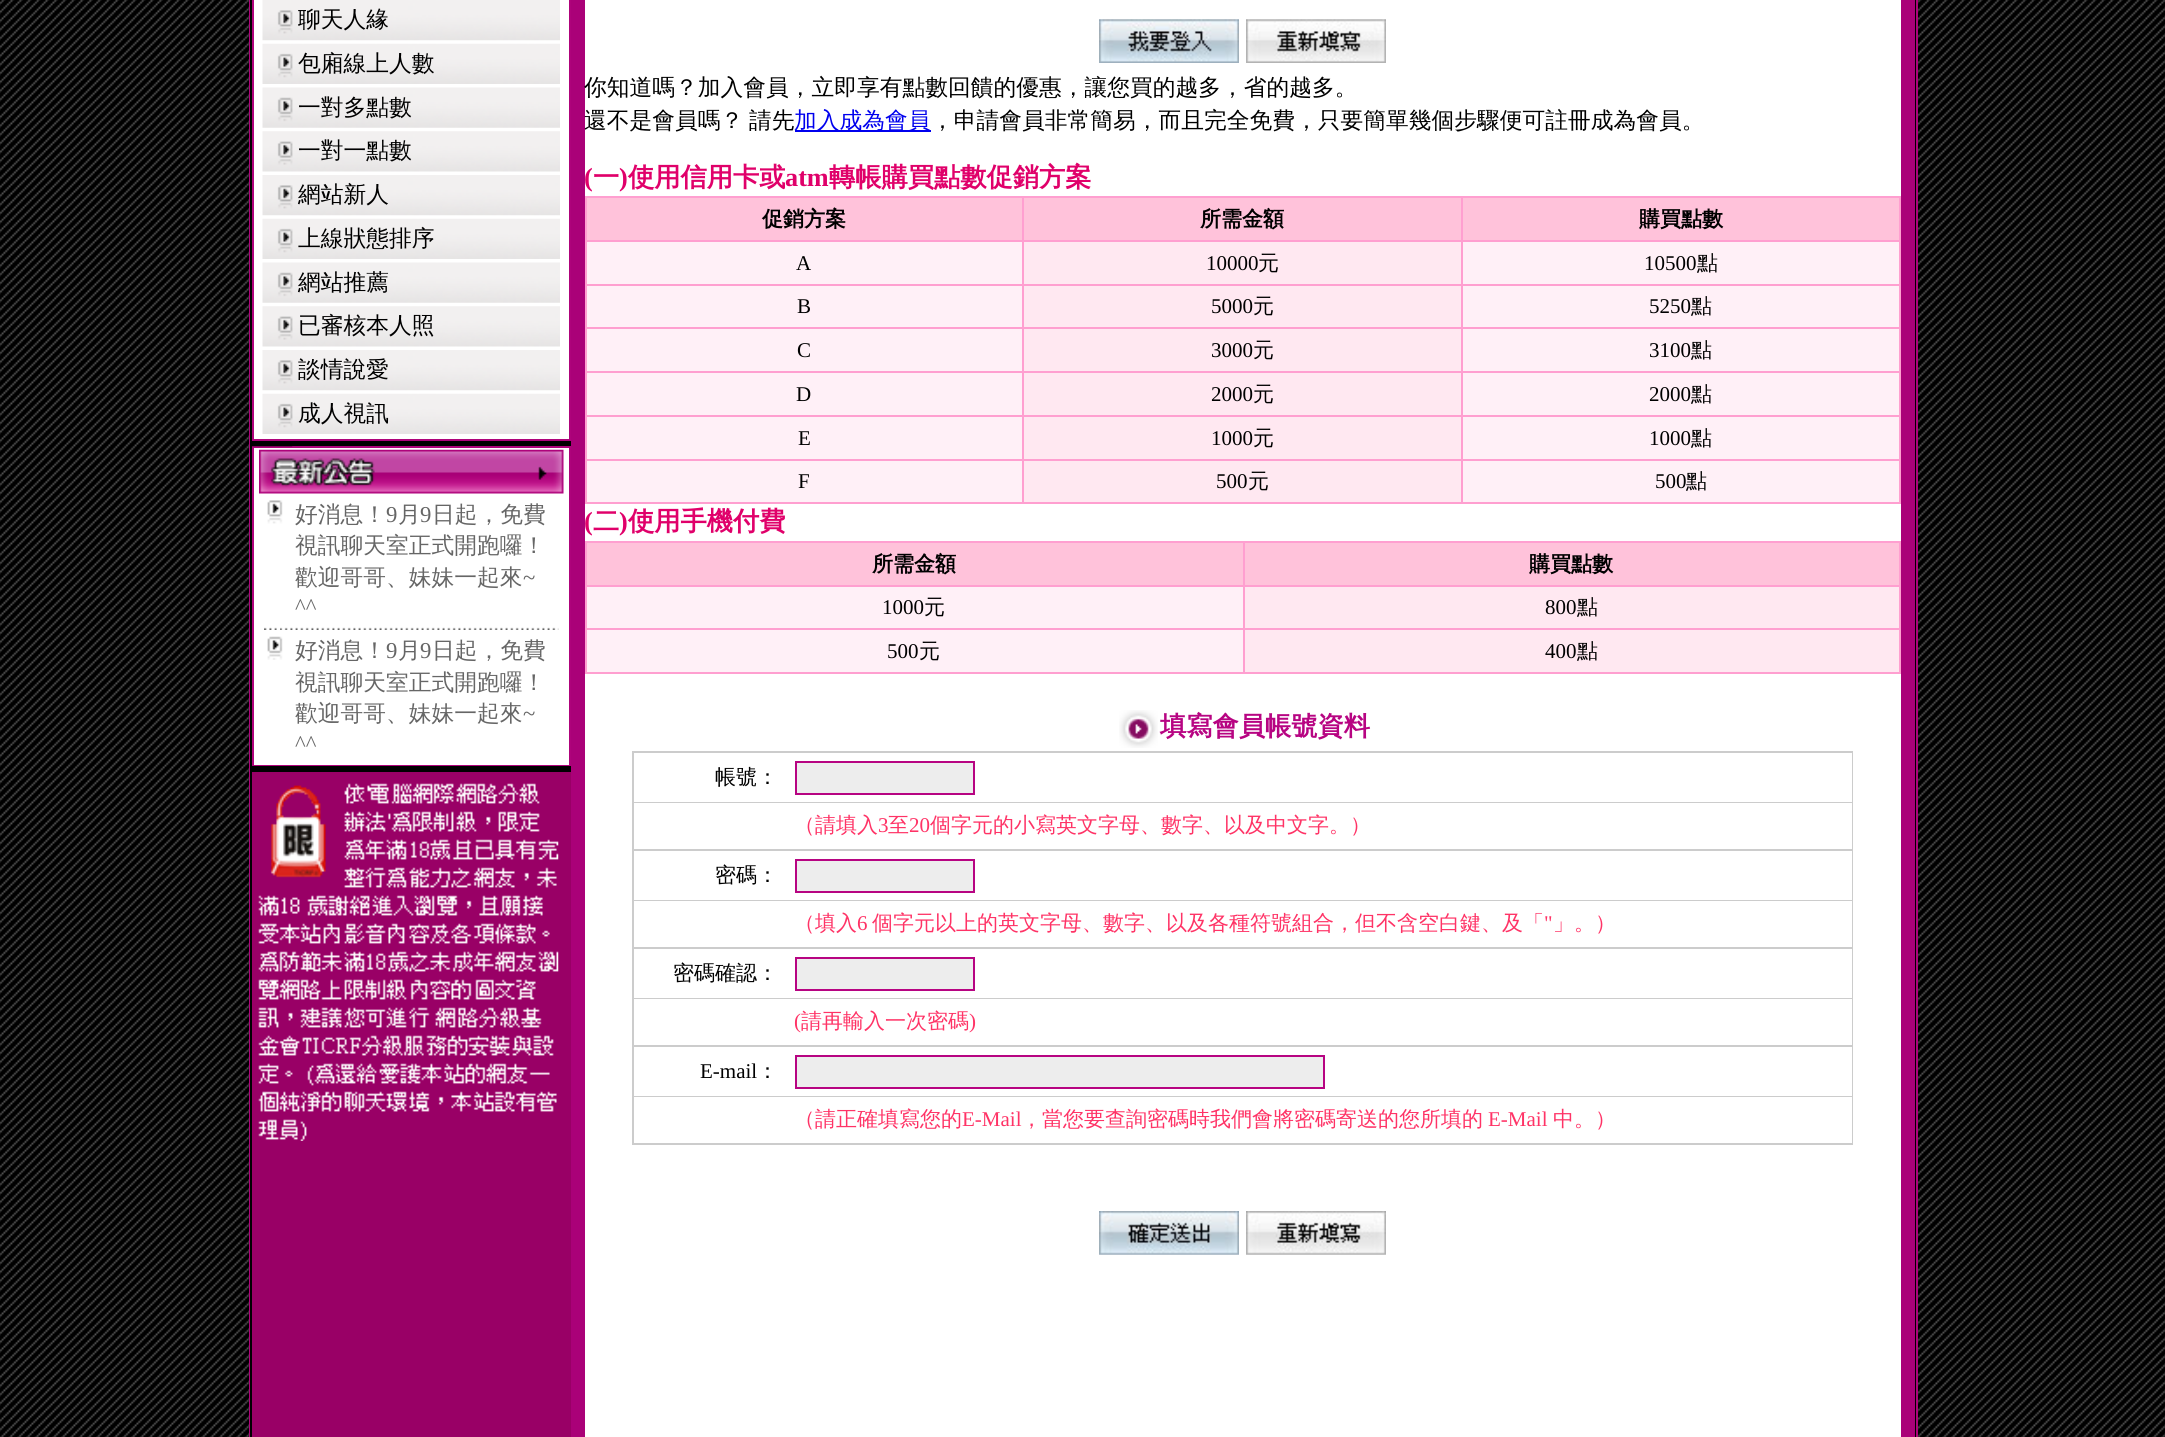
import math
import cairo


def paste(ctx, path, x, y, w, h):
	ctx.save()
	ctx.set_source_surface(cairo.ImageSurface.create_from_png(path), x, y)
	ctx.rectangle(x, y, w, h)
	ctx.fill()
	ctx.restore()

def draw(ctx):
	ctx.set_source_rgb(1, 1, 1)
	ctx.paint()
	paste(ctx, 'media/1.png', 0, 0, 2165, 1437)
	ctx.set_source_rgb(0.682, 0.012, 0.482)
	ctx.rectangle(249, 0, 1669, 1437)
	ctx.fill()
	ctx.set_source_rgb(0, 0, 0)
	ctx.rectangle(250, 0, 1666, 1437)
	ctx.fill()
	ctx.set_source_rgb(0.6, 0, 0.4)
	ctx.rectangle(252, 772, 319, 665)
	ctx.fill()
	ctx.set_source_rgb(0.682, 0.012, 0.482)
	ctx.rectangle(252, 0, 319, 441)
	ctx.fill()
	ctx.set_source_rgb(1, 1, 1)
	ctx.rectangle(254, 0, 315, 439)
	ctx.fill()
	paste(ctx, 'media/2.png', 262, 0, 298, 41)
	ctx.select_font_face('WenQuanYi Zen Hei Medium')
	ctx.set_font_size(22.75)
	ctx.set_source_rgb(0, 0, 0)
	ctx.move_to(298, 27)
	ctx.show_text('聊天人緣')
	paste(ctx, 'media/3.png', 262, 43, 298, 41)
	ctx.move_to(298, 71)
	ctx.show_text('包廂線上人數')
	paste(ctx, 'media/4.png', 262, 87, 298, 41)
	ctx.move_to(298, 115)
	ctx.show_text('一對多點數')
	paste(ctx, 'media/5.png', 262, 131, 298, 41)
	ctx.move_to(298, 158)
	ctx.show_text('一對一點數')
	paste(ctx, 'media/2.png', 262, 175, 298, 41)
	ctx.move_to(298, 202)
	ctx.show_text('網站新人')
	paste(ctx, 'media/3.png', 262, 218, 298, 41)
	ctx.move_to(298, 246)
	ctx.show_text('上線狀態排序')
	paste(ctx, 'media/4.png', 262, 262, 298, 41)
	ctx.move_to(298, 290)
	ctx.show_text('網站推薦')
	paste(ctx, 'media/5.png', 262, 306, 298, 41)
	ctx.move_to(298, 333)
	ctx.show_text('已審核本人照')
	paste(ctx, 'media/2.png', 262, 350, 298, 41)
	ctx.move_to(298, 377)
	ctx.show_text('談情說愛')
	paste(ctx, 'media/3.png', 262, 393, 298, 41)
	ctx.move_to(298, 421)
	ctx.show_text('成人視訊')
	ctx.set_source_rgb(0.682, 0.012, 0.482)
	ctx.rectangle(252, 446, 319, 320)
	ctx.fill()
	paste(ctx, 'media/6.png', 252, 446, 41, 1)
	ctx.set_source_rgb(1, 1, 1)
	ctx.rectangle(254, 448, 315, 317)
	ctx.fill()
	paste(ctx, 'media/7.png', 259, 449, 305, 45)
	paste(ctx, 'media/8.png', 267, 500, 16, 24)
	ctx.set_source_rgb(0.4, 0.4, 0.4)
	ctx.move_to(295, 522)
	ctx.show_text('好消息！')
	ctx.select_font_face('Liberation Serif')
	ctx.move_to(386, 522)
	ctx.show_text('9')
	ctx.select_font_face('WenQuanYi Zen Hei Medium')
	ctx.move_to(398, 522)
	ctx.show_text('月')
	ctx.select_font_face('Liberation Serif')
	ctx.move_to(420, 522)
	ctx.show_text('9')
	ctx.select_font_face('WenQuanYi Zen Hei Medium')
	for x, y, s in [
		(432, 522, '日起，免費'),
		(295, 553, '視訊聊天室正式開跑囉！'),
		(295, 585, '歡迎哥哥、妹妹一起來'),
	]:
		ctx.move_to(x, y)
		ctx.show_text(s)
	ctx.select_font_face('Liberation Serif')
	ctx.move_to(523, 585)
	ctx.show_text('~')
	ctx.move_to(295, 614)
	ctx.show_text('^^')
	paste(ctx, 'media/9.png', 264, 627, 295, 3)
	paste(ctx, 'media/10.png', 264, 627, 16, 3)
	paste(ctx, 'media/11.png', 267, 636, 16, 24)
	ctx.select_font_face('WenQuanYi Zen Hei Medium')
	ctx.move_to(295, 658)
	ctx.show_text('好消息！')
	ctx.select_font_face('Liberation Serif')
	ctx.move_to(386, 658)
	ctx.show_text('9')
	ctx.select_font_face('WenQuanYi Zen Hei Medium')
	ctx.move_to(398, 658)
	ctx.show_text('月')
	ctx.select_font_face('Liberation Serif')
	ctx.move_to(420, 658)
	ctx.show_text('9')
	ctx.select_font_face('WenQuanYi Zen Hei Medium')
	for x, y, s in [
		(432, 658, '日起，免費'),
		(295, 690, '視訊聊天室正式開跑囉！'),
		(295, 721, '歡迎哥哥、妹妹一起來'),
	]:
		ctx.move_to(x, y)
		ctx.show_text(s)
	ctx.select_font_face('Liberation Serif')
	ctx.move_to(523, 721)
	ctx.show_text('~')
	ctx.move_to(295, 751)
	ctx.show_text('^^')
	paste(ctx, 'media/12.png', 258, 783, 301, 358)
	ctx.set_source_rgb(0.667, 0.004, 0.471)
	ctx.rectangle(571, 0, 1344, 1437)
	ctx.fill()
	ctx.set_source_rgb(1, 1, 1)
	ctx.rectangle(585, 0, 1316, 1437)
	ctx.fill()
	paste(ctx, 'media/13.png', 1099, 19, 140, 44)
	paste(ctx, 'media/14.png', 1246, 19, 140, 44)
	ctx.select_font_face('WenQuanYi Zen Hei Medium')
	ctx.set_source_rgb(0, 0, 0)
	for x, y, s in [
		(584, 95, '你知道嗎？加入會員，立即享有點數回饋的優惠，讓您買的越多，省的越多。'),
		(584, 128, '還不是會員嗎？'),
		(749, 128, '請先'),
	]:
		ctx.move_to(x, y)
		ctx.show_text(s)
	ctx.set_source_rgb(0, 0, 0.933)
	ctx.rectangle(795, 130, 136, 2)
	ctx.fill()
	ctx.move_to(794, 128)
	ctx.show_text('加入成為會員')
	ctx.set_source_rgb(0, 0, 0)
	ctx.move_to(931, 128)
	ctx.show_text('，申請會員非常簡易，而且完全免費，只要簡單幾個步驟便可註冊成為會員。')
	ctx.select_font_face('Liberation Serif', cairo.FONT_SLANT_NORMAL, cairo.FONT_WEIGHT_BOLD)
	ctx.set_font_size(26.25)
	ctx.set_source_rgb(0.878, 0, 0.416)
	ctx.move_to(584, 186)
	ctx.show_text('(')
	ctx.select_font_face('WenQuanYi Zen Hei', cairo.FONT_SLANT_NORMAL, cairo.FONT_WEIGHT_BOLD)
	ctx.move_to(593, 186)
	ctx.show_text('一')
	ctx.select_font_face('Liberation Serif', cairo.FONT_SLANT_NORMAL, cairo.FONT_WEIGHT_BOLD)
	ctx.move_to(619, 186)
	ctx.show_text(')')
	ctx.select_font_face('WenQuanYi Zen Hei', cairo.FONT_SLANT_NORMAL, cairo.FONT_WEIGHT_BOLD)
	ctx.move_to(628, 186)
	ctx.show_text('使用信用卡或')
	ctx.select_font_face('Liberation Serif', cairo.FONT_SLANT_NORMAL, cairo.FONT_WEIGHT_BOLD)
	ctx.move_to(785, 186)
	ctx.show_text('atm')
	ctx.select_font_face('WenQuanYi Zen Hei', cairo.FONT_SLANT_NORMAL, cairo.FONT_WEIGHT_BOLD)
	ctx.move_to(829, 186)
	ctx.show_text('轉帳購買點數促銷方案')
	ctx.set_source_rgb(1, 0.624, 0.816)
	ctx.rectangle(585, 196, 1316, 2)
	ctx.rectangle(1899, 196, 2, 308)
	ctx.rectangle(585, 502, 1316, 2)
	ctx.rectangle(585, 196, 2, 308)
	ctx.fill()
	ctx.set_source_rgb(1, 0.761, 0.855)
	ctx.rectangle(587, 198, 1312, 42)
	ctx.fill()
	ctx.set_font_size(21)
	ctx.set_source_rgb(0, 0, 0)
	ctx.move_to(762, 226)
	ctx.show_text('促銷方案')
	ctx.set_source_rgb(1, 0.624, 0.816)
	ctx.rectangle(1461, 240, 440, 2)
	ctx.rectangle(1461, 284, 440, 2)
	ctx.rectangle(1461, 327, 440, 2)
	ctx.rectangle(1461, 371, 440, 2)
	ctx.rectangle(1461, 415, 440, 2)
	ctx.rectangle(1461, 459, 440, 2)
	ctx.rectangle(1461, 459, 2, 45)
	ctx.rectangle(1022, 459, 441, 2)
	ctx.rectangle(1461, 415, 2, 45)
	ctx.rectangle(1022, 415, 441, 2)
	ctx.rectangle(1461, 371, 2, 46)
	ctx.rectangle(1022, 371, 441, 2)
	ctx.rectangle(1461, 327, 2, 46)
	ctx.rectangle(1022, 327, 441, 2)
	ctx.rectangle(1461, 284, 2, 45)
	ctx.rectangle(1022, 284, 441, 2)
	ctx.rectangle(1461, 240, 2, 45)
	ctx.rectangle(1022, 240, 441, 2)
	ctx.rectangle(1022, 459, 2, 45)
	ctx.rectangle(585, 459, 439, 2)
	ctx.rectangle(1022, 415, 2, 45)
	ctx.rectangle(585, 415, 439, 2)
	ctx.rectangle(1022, 371, 2, 46)
	ctx.rectangle(585, 371, 439, 2)
	ctx.rectangle(1022, 327, 2, 46)
	ctx.rectangle(585, 327, 439, 2)
	ctx.rectangle(1022, 284, 2, 45)
	ctx.rectangle(585, 284, 439, 2)
	ctx.rectangle(1022, 240, 2, 45)
	ctx.rectangle(585, 240, 439, 2)
	ctx.rectangle(1022, 196, 2, 46)
	ctx.fill()
	ctx.set_source_rgb(0, 0, 0)
	ctx.move_to(1200, 226)
	ctx.show_text('所需金額')
	ctx.set_source_rgb(1, 0.624, 0.816)
	ctx.rectangle(1461, 196, 2, 46)
	ctx.fill()
	ctx.set_source_rgb(0, 0, 0)
	ctx.move_to(1639, 226)
	ctx.show_text('購買點數')
	ctx.set_source_rgb(1, 0.941, 0.965)
	ctx.rectangle(587, 242, 435, 42)
	ctx.fill()
	ctx.select_font_face('Liberation Serif')
	ctx.set_source_rgb(0, 0, 0)
	ctx.move_to(796, 270)
	ctx.show_text('A')
	ctx.set_source_rgb(1, 0.91, 0.945)
	ctx.rectangle(1024, 242, 437, 42)
	ctx.fill()
	ctx.set_source_rgb(0, 0, 0)
	ctx.move_to(1206, 270)
	ctx.show_text('10000')
	ctx.select_font_face('WenQuanYi Zen Hei Medium')
	ctx.move_to(1258, 270)
	ctx.show_text('元')
	ctx.set_source_rgb(1, 0.941, 0.965)
	ctx.rectangle(1463, 242, 436, 42)
	ctx.fill()
	ctx.select_font_face('Liberation Serif')
	ctx.set_source_rgb(0, 0, 0)
	ctx.move_to(1644, 270)
	ctx.show_text('10500')
	ctx.select_font_face('WenQuanYi Zen Hei Medium')
	ctx.move_to(1697, 270)
	ctx.show_text('點')
	ctx.set_source_rgb(1, 0.941, 0.965)
	ctx.rectangle(587, 286, 435, 41)
	ctx.fill()
	ctx.select_font_face('Liberation Serif')
	ctx.set_source_rgb(0, 0, 0)
	ctx.move_to(797, 313)
	ctx.show_text('B')
	ctx.set_source_rgb(1, 0.91, 0.945)
	ctx.rectangle(1024, 286, 437, 41)
	ctx.fill()
	ctx.set_source_rgb(0, 0, 0)
	ctx.move_to(1211, 313)
	ctx.show_text('5000')
	ctx.select_font_face('WenQuanYi Zen Hei Medium')
	ctx.move_to(1253, 313)
	ctx.show_text('元')
	ctx.set_source_rgb(1, 0.941, 0.965)
	ctx.rectangle(1463, 286, 436, 41)
	ctx.fill()
	ctx.select_font_face('Liberation Serif')
	ctx.set_source_rgb(0, 0, 0)
	ctx.move_to(1649, 313)
	ctx.show_text('5250')
	ctx.select_font_face('WenQuanYi Zen Hei Medium')
	ctx.move_to(1691, 313)
	ctx.show_text('點')
	ctx.set_source_rgb(1, 0.941, 0.965)
	ctx.rectangle(587, 329, 435, 42)
	ctx.fill()
	ctx.select_font_face('Liberation Serif')
	ctx.set_source_rgb(0, 0, 0)
	ctx.move_to(797, 357)
	ctx.show_text('C')
	ctx.set_source_rgb(1, 0.91, 0.945)
	ctx.rectangle(1024, 329, 437, 42)
	ctx.fill()
	ctx.set_source_rgb(0, 0, 0)
	ctx.move_to(1211, 357)
	ctx.show_text('3000')
	ctx.select_font_face('WenQuanYi Zen Hei Medium')
	ctx.move_to(1253, 357)
	ctx.show_text('元')
	ctx.set_source_rgb(1, 0.941, 0.965)
	ctx.rectangle(1463, 329, 436, 42)
	ctx.fill()
	ctx.select_font_face('Liberation Serif')
	ctx.set_source_rgb(0, 0, 0)
	ctx.move_to(1649, 357)
	ctx.show_text('3100')
	ctx.select_font_face('WenQuanYi Zen Hei Medium')
	ctx.move_to(1691, 357)
	ctx.show_text('點')
	ctx.set_source_rgb(1, 0.941, 0.965)
	ctx.rectangle(587, 373, 435, 42)
	ctx.fill()
	ctx.select_font_face('Liberation Serif')
	ctx.set_source_rgb(0, 0, 0)
	ctx.move_to(796, 401)
	ctx.show_text('D')
	ctx.set_source_rgb(1, 0.91, 0.945)
	ctx.rectangle(1024, 373, 437, 42)
	ctx.fill()
	ctx.set_source_rgb(0, 0, 0)
	ctx.move_to(1211, 401)
	ctx.show_text('2000')
	ctx.select_font_face('WenQuanYi Zen Hei Medium')
	ctx.move_to(1253, 401)
	ctx.show_text('元')
	ctx.set_source_rgb(1, 0.941, 0.965)
	ctx.rectangle(1463, 373, 436, 42)
	ctx.fill()
	ctx.select_font_face('Liberation Serif')
	ctx.set_source_rgb(0, 0, 0)
	ctx.move_to(1649, 401)
	ctx.show_text('2000')
	ctx.select_font_face('WenQuanYi Zen Hei Medium')
	ctx.move_to(1691, 401)
	ctx.show_text('點')
	ctx.set_source_rgb(1, 0.941, 0.965)
	ctx.rectangle(587, 417, 435, 42)
	ctx.fill()
	ctx.select_font_face('Liberation Serif')
	ctx.set_source_rgb(0, 0, 0)
	ctx.move_to(798, 445)
	ctx.show_text('E')
	ctx.set_source_rgb(1, 0.91, 0.945)
	ctx.rectangle(1024, 417, 437, 42)
	ctx.fill()
	ctx.set_source_rgb(0, 0, 0)
	ctx.move_to(1211, 445)
	ctx.show_text('1000')
	ctx.select_font_face('WenQuanYi Zen Hei Medium')
	ctx.move_to(1253, 445)
	ctx.show_text('元')
	ctx.set_source_rgb(1, 0.941, 0.965)
	ctx.rectangle(1463, 417, 436, 42)
	ctx.fill()
	ctx.select_font_face('Liberation Serif')
	ctx.set_source_rgb(0, 0, 0)
	ctx.move_to(1649, 445)
	ctx.show_text('1000')
	ctx.select_font_face('WenQuanYi Zen Hei Medium')
	ctx.move_to(1691, 445)
	ctx.show_text('點')
	ctx.set_source_rgb(1, 0.941, 0.965)
	ctx.rectangle(587, 461, 435, 41)
	ctx.fill()
	ctx.select_font_face('Liberation Serif')
	ctx.set_source_rgb(0, 0, 0)
	ctx.move_to(798, 488)
	ctx.show_text('F')
	ctx.set_source_rgb(1, 0.91, 0.945)
	ctx.rectangle(1024, 461, 437, 41)
	ctx.fill()
	ctx.set_source_rgb(0, 0, 0)
	ctx.move_to(1216, 488)
	ctx.show_text('500')
	ctx.select_font_face('WenQuanYi Zen Hei Medium')
	ctx.move_to(1248, 488)
	ctx.show_text('元')
	ctx.set_source_rgb(1, 0.941, 0.965)
	ctx.rectangle(1463, 461, 436, 41)
	ctx.fill()
	ctx.select_font_face('Liberation Serif')
	ctx.set_source_rgb(0, 0, 0)
	ctx.move_to(1655, 488)
	ctx.show_text('500')
	ctx.select_font_face('WenQuanYi Zen Hei Medium')
	ctx.move_to(1686, 488)
	ctx.show_text('點')
	ctx.select_font_face('Liberation Serif', cairo.FONT_SLANT_NORMAL, cairo.FONT_WEIGHT_BOLD)
	ctx.set_font_size(26.25)
	ctx.set_source_rgb(0.878, 0, 0.416)
	ctx.move_to(584, 530)
	ctx.show_text('(')
	ctx.select_font_face('WenQuanYi Zen Hei', cairo.FONT_SLANT_NORMAL, cairo.FONT_WEIGHT_BOLD)
	ctx.move_to(593, 530)
	ctx.show_text('二')
	ctx.select_font_face('Liberation Serif', cairo.FONT_SLANT_NORMAL, cairo.FONT_WEIGHT_BOLD)
	ctx.move_to(619, 530)
	ctx.show_text(')')
	ctx.select_font_face('WenQuanYi Zen Hei', cairo.FONT_SLANT_NORMAL, cairo.FONT_WEIGHT_BOLD)
	ctx.move_to(628, 530)
	ctx.show_text('使用手機付費')
	ctx.set_source_rgb(1, 0.624, 0.816)
	ctx.rectangle(585, 541, 1316, 2)
	ctx.rectangle(1899, 541, 2, 133)
	ctx.rectangle(585, 672, 1316, 2)
	ctx.rectangle(585, 541, 2, 133)
	ctx.fill()
	ctx.set_source_rgb(1, 0.761, 0.855)
	ctx.rectangle(587, 543, 1312, 42)
	ctx.fill()
	ctx.set_font_size(21)
	ctx.set_source_rgb(0, 0, 0)
	ctx.move_to(872, 571)
	ctx.show_text('所需金額')
	ctx.set_source_rgb(1, 0.624, 0.816)
	ctx.rectangle(1243, 585, 658, 2)
	ctx.rectangle(1243, 628, 658, 2)
	ctx.rectangle(1243, 628, 2, 46)
	ctx.rectangle(585, 628, 659, 2)
	ctx.rectangle(1243, 585, 2, 45)
	ctx.rectangle(585, 585, 659, 2)
	ctx.rectangle(1243, 541, 2, 45)
	ctx.fill()
	ctx.set_source_rgb(0, 0, 0)
	ctx.move_to(1529, 571)
	ctx.show_text('購買點數')
	ctx.set_source_rgb(1, 0.941, 0.965)
	ctx.rectangle(587, 587, 656, 41)
	ctx.fill()
	ctx.select_font_face('Liberation Serif')
	ctx.set_source_rgb(0, 0, 0)
	ctx.move_to(882, 614)
	ctx.show_text('1000')
	ctx.select_font_face('WenQuanYi Zen Hei Medium')
	ctx.move_to(924, 614)
	ctx.show_text('元')
	ctx.set_source_rgb(1, 0.91, 0.945)
	ctx.rectangle(1245, 587, 654, 41)
	ctx.fill()
	ctx.select_font_face('Liberation Serif')
	ctx.set_source_rgb(0, 0, 0)
	ctx.move_to(1545, 614)
	ctx.show_text('800')
	ctx.select_font_face('WenQuanYi Zen Hei Medium')
	ctx.move_to(1577, 614)
	ctx.show_text('點')
	ctx.set_source_rgb(1, 0.941, 0.965)
	ctx.rectangle(587, 630, 656, 42)
	ctx.fill()
	ctx.select_font_face('Liberation Serif')
	ctx.set_source_rgb(0, 0, 0)
	ctx.move_to(887, 658)
	ctx.show_text('500')
	ctx.select_font_face('WenQuanYi Zen Hei Medium')
	ctx.move_to(919, 658)
	ctx.show_text('元')
	ctx.set_source_rgb(1, 0.91, 0.945)
	ctx.rectangle(1245, 630, 654, 42)
	ctx.fill()
	ctx.select_font_face('Liberation Serif')
	ctx.set_source_rgb(0, 0, 0)
	ctx.move_to(1545, 658)
	ctx.show_text('400')
	ctx.select_font_face('WenQuanYi Zen Hei Medium')
	ctx.move_to(1577, 658)
	ctx.show_text('點')
	paste(ctx, 'media/15.png', 1119, 710, 39, 38)
	ctx.select_font_face('WenQuanYi Zen Hei', cairo.FONT_SLANT_NORMAL, cairo.FONT_WEIGHT_BOLD)
	ctx.set_font_size(26.25)
	ctx.set_source_rgb(0.718, 0.016, 0.51)
	ctx.move_to(1160, 735)
	ctx.show_text('填寫會員帳號資料')
	ctx.set_source_rgb(0.8, 0.8, 0.8)
	ctx.rectangle(632, 751, 1221, 394)
	ctx.fill()
	ctx.set_source_rgb(1, 1, 1)
	ctx.rectangle(634, 753, 1218, 49)
	ctx.fill()
	ctx.select_font_face('WenQuanYi Zen Hei Medium')
	ctx.set_font_size(21)
	ctx.set_source_rgb(0, 0, 0)
	ctx.move_to(715, 784)
	ctx.show_text('帳號：')
	ctx.set_source_rgb(0.929, 0.929, 0.929)
	ctx.rectangle(796, 762, 178, 32)
	ctx.fill_preserve()
	ctx.set_source_rgb(0.718, 0.016, 0.51)
	ctx.stroke()
	ctx.set_source_rgb(1, 1, 1)
	ctx.rectangle(634, 803, 1218, 46)
	ctx.fill()
	ctx.set_source_rgb(1, 0.2, 0.4)
	ctx.move_to(794, 832)
	ctx.show_text('（請填入')
	ctx.select_font_face('Liberation Serif')
	ctx.move_to(878, 832)
	ctx.show_text('3')
	ctx.select_font_face('WenQuanYi Zen Hei Medium')
	ctx.move_to(888, 832)
	ctx.show_text('至')
	ctx.select_font_face('Liberation Serif')
	ctx.move_to(909, 832)
	ctx.show_text('20')
	ctx.select_font_face('WenQuanYi Zen Hei Medium')
	ctx.move_to(930, 832)
	ctx.show_text('個字元的小寫英文字母、數字、以及中文字。）')
	ctx.set_source_rgb(1, 1, 1)
	ctx.rectangle(634, 851, 1218, 49)
	ctx.fill()
	ctx.set_source_rgb(0, 0, 0)
	ctx.move_to(715, 882)
	ctx.show_text('密碼：')
	ctx.set_source_rgb(0.929, 0.929, 0.929)
	ctx.rectangle(796, 860, 178, 32)
	ctx.fill_preserve()
	ctx.set_source_rgb(0.718, 0.016, 0.51)
	ctx.stroke()
	ctx.set_source_rgb(1, 1, 1)
	ctx.rectangle(634, 901, 1218, 46)
	ctx.fill()
	ctx.set_source_rgb(1, 0.2, 0.4)
	ctx.move_to(794, 930)
	ctx.show_text('（填入')
	ctx.select_font_face('Liberation Serif')
	ctx.move_to(857, 930)
	ctx.show_text('6')
	ctx.select_font_face('WenQuanYi Zen Hei Medium')
	ctx.move_to(872, 930)
	ctx.show_text('個字元以上的英文字母、數字、以及各種符號組合，但不含空白鍵、及「')
	ctx.select_font_face('Liberation Serif')
	ctx.move_to(1544, 930)
	ctx.show_text('"')
	ctx.select_font_face('WenQuanYi Zen Hei Medium')
	ctx.move_to(1553, 930)
	ctx.show_text('」。）')
	ctx.set_source_rgb(1, 1, 1)
	ctx.rectangle(634, 949, 1218, 49)
	ctx.fill()
	ctx.set_source_rgb(0, 0, 0)
	ctx.move_to(673, 980)
	ctx.show_text('密碼確認：')
	ctx.set_source_rgb(0.929, 0.929, 0.929)
	ctx.rectangle(796, 958, 178, 32)
	ctx.fill_preserve()
	ctx.set_source_rgb(0.718, 0.016, 0.51)
	ctx.stroke()
	ctx.set_source_rgb(1, 1, 1)
	ctx.rectangle(634, 999, 1218, 46)
	ctx.fill()
	ctx.select_font_face('Liberation Serif')
	ctx.set_source_rgb(1, 0.2, 0.4)
	ctx.move_to(794, 1028)
	ctx.show_text('(')
	ctx.select_font_face('WenQuanYi Zen Hei Medium')
	ctx.move_to(801, 1028)
	ctx.show_text('請再輸入一次密碼')
	ctx.select_font_face('Liberation Serif')
	ctx.move_to(969, 1028)
	ctx.show_text(')')
	ctx.set_source_rgb(1, 1, 1)
	ctx.rectangle(634, 1047, 1218, 49)
	ctx.fill()
	ctx.set_source_rgb(0, 0, 0)
	ctx.move_to(700, 1078)
	ctx.show_text('E-mail')
	ctx.select_font_face('WenQuanYi Zen Hei Medium')
	ctx.move_to(757, 1078)
	ctx.show_text('：')
	ctx.set_source_rgb(0.929, 0.929, 0.929)
	ctx.rectangle(796, 1056, 528, 32)
	ctx.fill_preserve()
	ctx.set_source_rgb(0.718, 0.016, 0.51)
	ctx.stroke()
	ctx.set_source_rgb(1, 1, 1)
	ctx.rectangle(634, 1097, 1218, 46)
	ctx.fill()
	ctx.set_source_rgb(1, 0.2, 0.4)
	ctx.move_to(794, 1126)
	ctx.show_text('（請正確填寫您的')
	ctx.select_font_face('Liberation Serif')
	ctx.move_to(962, 1126)
	ctx.show_text('E-Mail')
	ctx.select_font_face('WenQuanYi Zen Hei Medium')
	ctx.move_to(1021, 1126)
	ctx.show_text('，當您要查詢密碼時我們會將密碼寄送的您所填的')
	ctx.select_font_face('Liberation Serif')
	ctx.move_to(1488, 1126)
	ctx.show_text('E-Mail')
	ctx.select_font_face('WenQuanYi Zen Hei Medium')
	ctx.move_to(1553, 1126)
	ctx.show_text('中。）')
	paste(ctx, 'media/16.png', 1099, 1211, 140, 44)
	paste(ctx, 'media/17.png', 1246, 1211, 140, 44)


surface = cairo.ImageSurface(cairo.FORMAT_RGB24, 2165, 1437)
ctx = cairo.Context(surface)
options = cairo.FontOptions()
options.set_hint_metrics(cairo.HINT_METRICS_OFF)
options.set_hint_style(cairo.HINT_STYLE_NONE)
ctx.set_font_options(options)
ctx.set_miter_limit(4)
draw(ctx)
surface.write_to_png('image.png')
